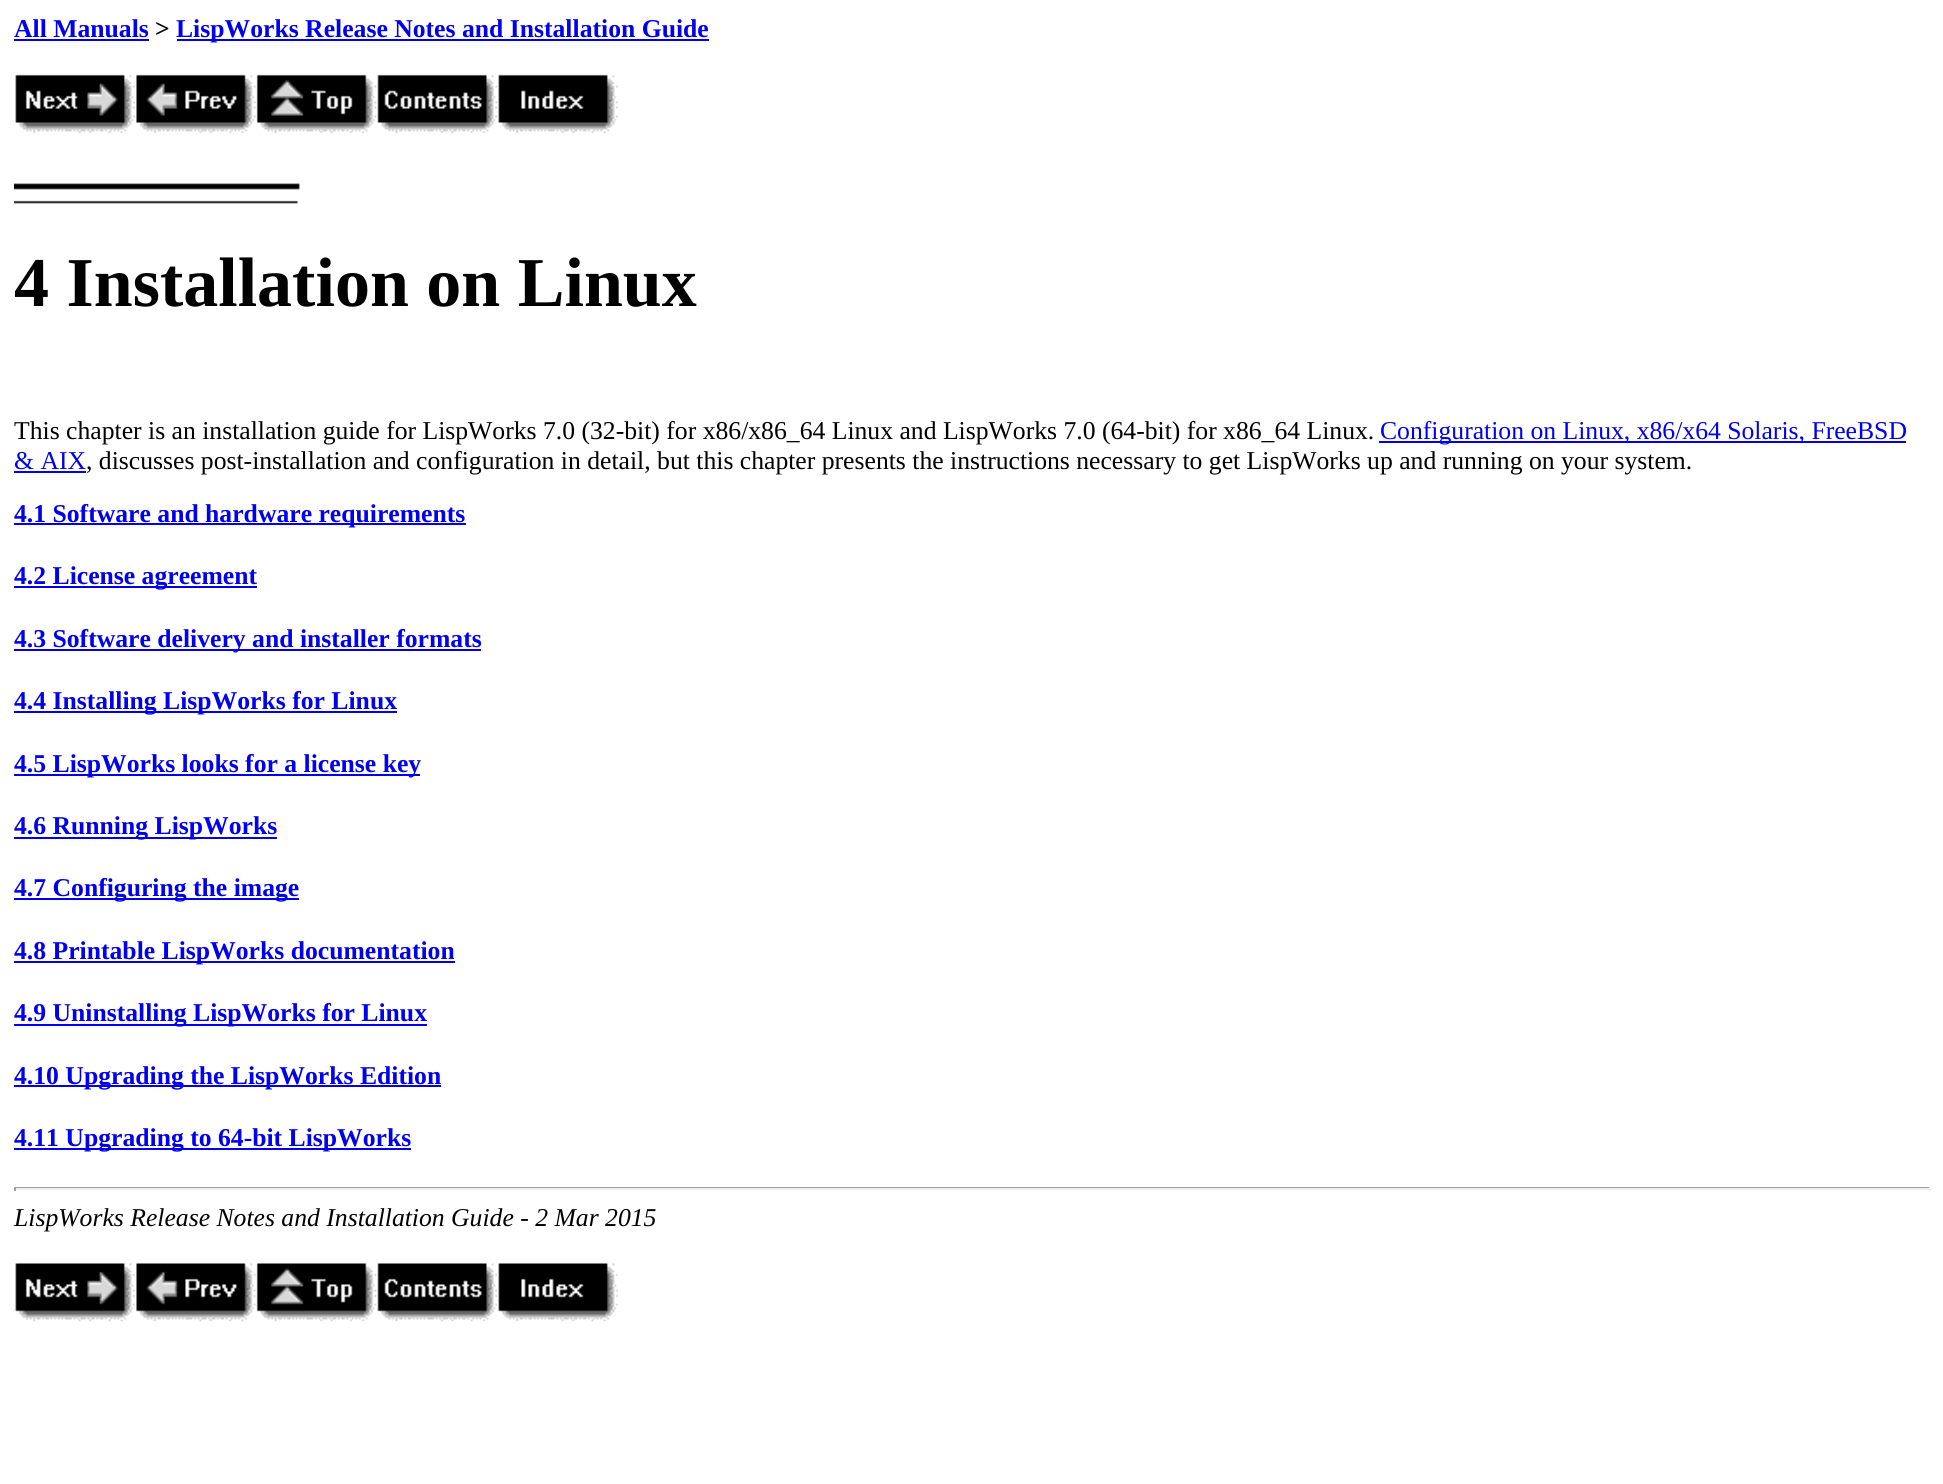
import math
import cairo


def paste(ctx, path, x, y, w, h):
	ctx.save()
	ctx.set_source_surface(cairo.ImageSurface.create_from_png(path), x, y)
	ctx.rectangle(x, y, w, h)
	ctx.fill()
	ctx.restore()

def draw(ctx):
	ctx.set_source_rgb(1, 1, 1)
	ctx.paint()
	ctx.select_font_face('Liberation Serif', cairo.FONT_SLANT_NORMAL, cairo.FONT_WEIGHT_BOLD)
	ctx.set_font_size(25.67)
	ctx.set_source_rgb(0, 0, 0.933)
	ctx.move_to(14, 37)
	ctx.show_text('All Manuals')
	ctx.rectangle(14, 39, 135, 2)
	ctx.fill()
	ctx.set_source_rgb(0, 0, 0)
	ctx.move_to(155, 37)
	ctx.show_text('>')
	ctx.set_source_rgb(0, 0, 0.933)
	ctx.rectangle(177, 39, 532, 2)
	ctx.fill()
	ctx.move_to(176, 37)
	ctx.show_text('LispWorks Release Notes and Installation Guide')
	paste(ctx, 'media/1.png', 15, 74, 120, 59)
	paste(ctx, 'media/2.png', 136, 74, 120, 59)
	paste(ctx, 'media/3.png', 256, 74, 121, 59)
	paste(ctx, 'media/4.png', 377, 74, 120, 59)
	paste(ctx, 'media/5.png', 498, 74, 120, 59)
	paste(ctx, 'media/6.png', 14, 183, 286, 21)
	ctx.set_font_size(70)
	ctx.set_source_rgb(0, 0, 0)
	ctx.move_to(14, 306)
	ctx.show_text('4 Installation on Linux')
	ctx.select_font_face('Liberation Serif')
	ctx.set_font_size(25.67)
	ctx.move_to(14, 439)
	ctx.show_text('This chapter is an installation guide for LispWorks 7.0 (32-bit) for x86/x86_64 Linux and LispWorks 7.0 (64-bit) for x86_64 Linux.')
	ctx.set_source_rgb(0, 0, 0.933)
	ctx.rectangle(1379, 441, 527, 2)
	ctx.fill()
	ctx.move_to(1380, 439)
	ctx.show_text('Configuration on Linux, x86/x64 Solaris, FreeBSD')
	ctx.move_to(14, 469)
	ctx.show_text('& AIX')
	ctx.rectangle(14, 471, 72, 2)
	ctx.fill()
	ctx.set_source_rgb(0, 0, 0)
	ctx.move_to(86, 469)
	ctx.show_text(', discusses post-installation and configuration in detail, but this chapter presents the instructions necessary to get LispWorks up and running on your system.')
	ctx.set_source_rgb(0, 0, 0.933)
	ctx.rectangle(14, 523, 452, 2)
	ctx.fill()
	ctx.select_font_face('Liberation Serif', cairo.FONT_SLANT_NORMAL, cairo.FONT_WEIGHT_BOLD)
	ctx.move_to(14, 522)
	ctx.show_text('4.1 Software and hardware requirements')
	ctx.rectangle(14, 586, 243, 2)
	ctx.fill()
	ctx.move_to(14, 584)
	ctx.show_text('4.2 License agreement')
	ctx.rectangle(14, 649, 467, 2)
	ctx.fill()
	ctx.move_to(14, 647)
	ctx.show_text('4.3 Software delivery and installer formats')
	ctx.rectangle(14, 711, 383, 2)
	ctx.fill()
	ctx.move_to(14, 709)
	ctx.show_text('4.4 Installing LispWorks for Linux')
	ctx.rectangle(14, 774, 406, 2)
	ctx.fill()
	ctx.move_to(14, 772)
	ctx.show_text('4.5 LispWorks looks for a license key')
	ctx.rectangle(14, 837, 263, 2)
	ctx.fill()
	ctx.move_to(14, 834)
	ctx.show_text('4.6 Running LispWorks')
	ctx.rectangle(14, 898, 285, 2)
	ctx.fill()
	ctx.move_to(14, 896)
	ctx.show_text('4.7 Configuring the image')
	ctx.rectangle(14, 961, 441, 2)
	ctx.fill()
	ctx.move_to(14, 959)
	ctx.show_text('4.8 Printable LispWorks documentation')
	ctx.rectangle(14, 1024, 413, 2)
	ctx.fill()
	ctx.move_to(14, 1021)
	ctx.show_text('4.9 Uninstalling LispWorks for Linux')
	ctx.rectangle(14, 1085, 427, 2)
	ctx.fill()
	ctx.move_to(14, 1084)
	ctx.show_text('4.10 Upgrading the LispWorks Edition')
	ctx.rectangle(14, 1148, 397, 2)
	ctx.fill()
	ctx.move_to(14, 1146)
	ctx.show_text('4.11 Upgrading to 64-bit LispWorks')
	ctx.set_source_rgb(0.624, 0.624, 0.624)
	ctx.rectangle(14, 1187, 1916, 1)
	ctx.fill()
	ctx.set_source_rgb(0.933, 0.933, 0.933)
	ctx.rectangle(1929, 1187, 2, 4)
	ctx.rectangle(14, 1188, 1916, 2)
	ctx.fill()
	ctx.set_source_rgb(0.624, 0.624, 0.624)
	ctx.rectangle(14, 1187, 2, 4)
	ctx.fill()
	ctx.select_font_face('Liberation Serif', cairo.FONT_SLANT_ITALIC)
	ctx.set_source_rgb(0, 0, 0)
	ctx.move_to(14, 1226)
	ctx.show_text('LispWorks Release Notes and Installation Guide - 2 Mar 2015')
	paste(ctx, 'media/7.png', 15, 1263, 120, 59)
	paste(ctx, 'media/8.png', 136, 1263, 120, 59)
	paste(ctx, 'media/9.png', 256, 1263, 121, 59)
	paste(ctx, 'media/10.png', 377, 1263, 120, 59)
	paste(ctx, 'media/11.png', 498, 1263, 120, 59)


surface = cairo.ImageSurface(cairo.FORMAT_RGB24, 1943, 1484)
ctx = cairo.Context(surface)
options = cairo.FontOptions()
options.set_hint_metrics(cairo.HINT_METRICS_OFF)
options.set_hint_style(cairo.HINT_STYLE_NONE)
ctx.set_font_options(options)
ctx.set_miter_limit(4)
draw(ctx)
surface.write_to_png('image.png')
